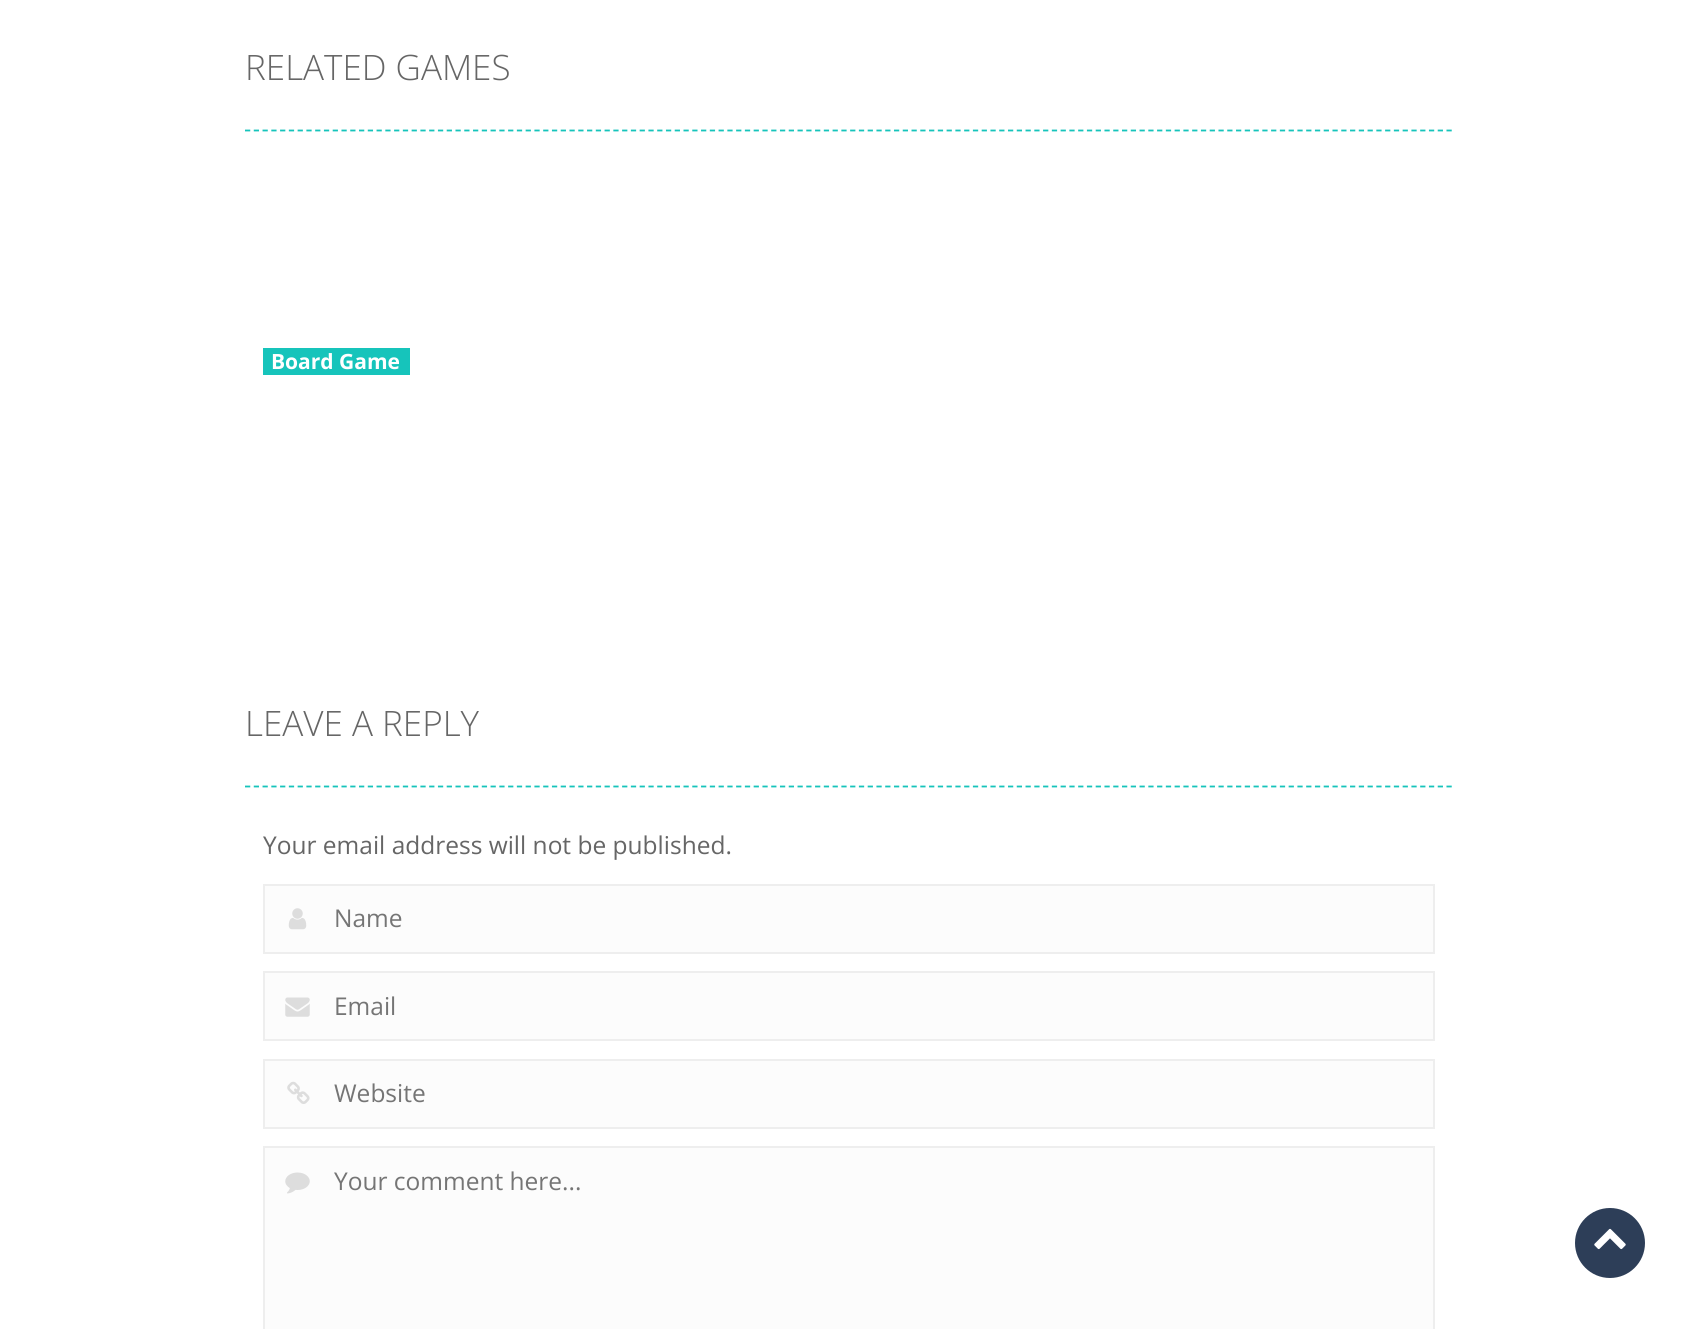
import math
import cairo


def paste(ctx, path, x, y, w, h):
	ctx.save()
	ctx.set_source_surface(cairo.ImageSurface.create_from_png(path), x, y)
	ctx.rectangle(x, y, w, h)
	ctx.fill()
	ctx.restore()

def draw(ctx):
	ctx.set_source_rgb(1, 1, 1)
	ctx.paint()
	ctx.new_path()
	ctx.move_to(245, 130.5)
	ctx.line_to(1452.5, 130.5)
	ctx.set_source_rgb(0.086, 0.769, 0.733)
	ctx.set_line_width(1.8)
	ctx.set_dash([5.25, 3.52])
	ctx.stroke()
	ctx.select_font_face('Open Sans Light')
	ctx.set_font_size(35)
	ctx.set_source_rgb(0.4, 0.4, 0.4)
	ctx.move_to(245, 80)
	ctx.show_text('RELATED GAMES')
	ctx.set_source_rgb(0.086, 0.769, 0.733)
	ctx.rectangle(263, 348, 147, 27)
	ctx.fill()
	ctx.select_font_face('Open Sans', cairo.FONT_SLANT_NORMAL, cairo.FONT_WEIGHT_BOLD)
	ctx.set_font_size(21)
	ctx.set_source_rgb(1, 1, 1)
	ctx.move_to(271, 369)
	ctx.show_text('Board Game')
	ctx.new_path()
	ctx.move_to(245, 786.5)
	ctx.line_to(1452.5, 786.5)
	ctx.set_source_rgb(0.086, 0.769, 0.733)
	ctx.stroke()
	ctx.select_font_face('Open Sans Light')
	ctx.set_font_size(35)
	ctx.set_source_rgb(0.4, 0.4, 0.4)
	ctx.move_to(245, 736)
	ctx.show_text('LEAVE A REPLY')
	ctx.select_font_face('Open Sans')
	ctx.set_font_size(24.5)
	ctx.move_to(263, 854)
	ctx.show_text('Your email address will not be published.')
	ctx.set_source_rgb(0.988, 0.988, 0.988)
	ctx.rectangle(264, 885, 1170, 68)
	ctx.fill_preserve()
	ctx.set_source_rgb(0.933, 0.933, 0.933)
	ctx.set_line_width(2)
	ctx.set_dash([])
	ctx.stroke()
	paste(ctx, 'media/1.png', 288, 908, 19, 22)
	ctx.set_source_rgb(0.459, 0.459, 0.459)
	ctx.move_to(334, 927)
	ctx.show_text('Name')
	ctx.set_source_rgb(0.988, 0.988, 0.988)
	ctx.rectangle(264, 972, 1170, 68)
	ctx.fill_preserve()
	ctx.set_source_rgb(0.933, 0.933, 0.933)
	ctx.stroke()
	paste(ctx, 'media/2.png', 285, 997, 25, 20)
	ctx.set_source_rgb(0.459, 0.459, 0.459)
	ctx.move_to(334, 1015)
	ctx.show_text('Email')
	ctx.set_source_rgb(0.988, 0.988, 0.988)
	ctx.rectangle(264, 1060, 1170, 68)
	ctx.fill_preserve()
	ctx.set_source_rgb(0.933, 0.933, 0.933)
	ctx.stroke()
	paste(ctx, 'media/3.png', 287, 1081, 23, 23)
	ctx.set_source_rgb(0.459, 0.459, 0.459)
	ctx.move_to(334, 1102)
	ctx.show_text('Website')
	ctx.set_source_rgb(0.988, 0.988, 0.988)
	ctx.rectangle(264, 1147, 1170, 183)
	ctx.fill_preserve()
	ctx.set_source_rgb(0.933, 0.933, 0.933)
	ctx.stroke()
	paste(ctx, 'media/4.png', 285, 1172, 25, 22)
	ctx.set_source_rgb(0.459, 0.459, 0.459)
	ctx.move_to(334, 1190)
	ctx.show_text('Your comment here...')
	ctx.set_source_rgb(0.176, 0.243, 0.345)
	ctx.new_path()
	ctx.arc(1610, 1243, 35, 0, 2 * math.pi)
	ctx.fill()
	paste(ctx, 'media/5.png', 1594, 1228, 32, 22)


surface = cairo.ImageSurface(cairo.FORMAT_RGB24, 1696, 1329)
ctx = cairo.Context(surface)
options = cairo.FontOptions()
options.set_hint_metrics(cairo.HINT_METRICS_OFF)
options.set_hint_style(cairo.HINT_STYLE_NONE)
ctx.set_font_options(options)
ctx.set_miter_limit(4)
draw(ctx)
surface.write_to_png('image.png')
